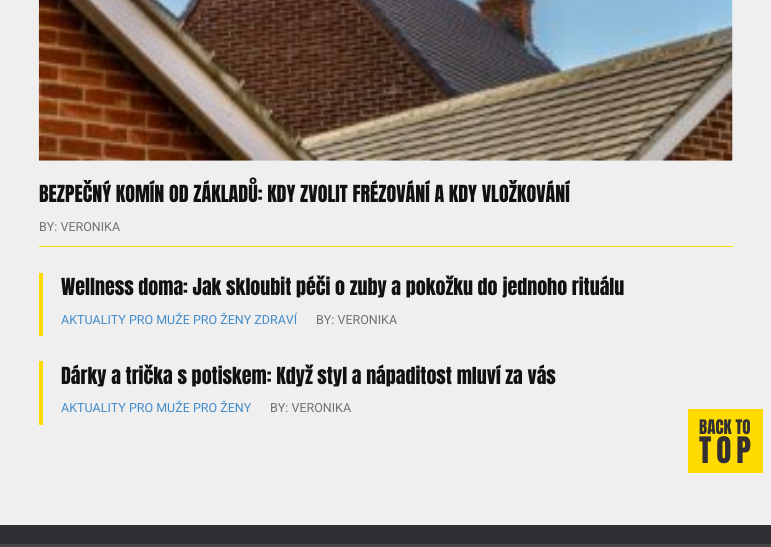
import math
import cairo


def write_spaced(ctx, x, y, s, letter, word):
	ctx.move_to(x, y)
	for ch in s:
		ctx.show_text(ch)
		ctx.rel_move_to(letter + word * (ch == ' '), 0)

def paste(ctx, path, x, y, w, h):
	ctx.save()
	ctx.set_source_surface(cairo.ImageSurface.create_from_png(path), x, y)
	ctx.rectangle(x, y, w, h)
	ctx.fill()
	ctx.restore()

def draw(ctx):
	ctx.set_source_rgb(0.192, 0.184, 0.204)
	ctx.paint()
	ctx.set_source_rgb(0.937, 0.937, 0.937)
	ctx.rectangle(0, 0, 771, 525)
	ctx.fill()
	ctx.set_source_rgb(1, 0.859, 0)
	ctx.rectangle(39, 246, 694, 1)
	ctx.fill()
	paste(ctx, 'media/1.png', 38, 0, 695, 161)
	ctx.select_font_face('Anton')
	ctx.set_font_size(20)
	ctx.set_source_rgb(0.067, 0.067, 0.067)
	ctx.move_to(39, 202)
	ctx.show_text('BEZPEČNÝ KOMÍN OD ZÁKLADŮ: KDY ZVOLIT FRÉZOVÁNÍ A KDY VLOŽKOVÁNÍ')
	ctx.select_font_face('Roboto')
	ctx.set_font_size(12.5)
	ctx.set_source_rgb(0.443, 0.443, 0.443)
	ctx.move_to(39, 231)
	ctx.show_text('BY: VERONIKA')
	ctx.set_source_rgb(1, 0.859, 0)
	ctx.rectangle(39, 273, 4, 63)
	ctx.fill()
	ctx.select_font_face('Anton')
	ctx.set_font_size(20)
	ctx.set_source_rgb(0.067, 0.067, 0.067)
	ctx.move_to(61, 295)
	ctx.show_text('Wellness doma: Jak skloubit péči o zuby a pokožku do jednoho rituálu')
	ctx.select_font_face('Roboto')
	ctx.set_font_size(12.5)
	ctx.set_source_rgb(0.259, 0.545, 0.792)
	ctx.move_to(61, 324)
	ctx.show_text('AKTUALITY PRO MUŽE PRO ŽENY ZDRAVÍ')
	ctx.set_source_rgb(0.443, 0.443, 0.443)
	ctx.move_to(316, 324)
	ctx.show_text('BY: VERONIKA')
	ctx.set_source_rgb(1, 0.859, 0)
	ctx.rectangle(39, 361, 4, 64)
	ctx.fill()
	ctx.select_font_face('Anton')
	ctx.set_font_size(20)
	ctx.set_source_rgb(0.067, 0.067, 0.067)
	ctx.move_to(61, 384)
	ctx.show_text('Dárky a trička s potiskem: Když styl a nápaditost mluví za vás')
	ctx.select_font_face('Roboto')
	ctx.set_font_size(12.5)
	ctx.set_source_rgb(0.259, 0.545, 0.792)
	ctx.move_to(61, 412)
	ctx.show_text('AKTUALITY PRO MUŽE PRO ŽENY')
	ctx.set_source_rgb(0.443, 0.443, 0.443)
	ctx.move_to(270, 412)
	ctx.show_text('BY: VERONIKA')
	ctx.set_source_rgb(1, 0.859, 0)
	ctx.rectangle(688, 409, 75, 64)
	ctx.fill()
	ctx.select_font_face('Anton')
	ctx.set_font_size(17)
	ctx.set_source_rgb(0.192, 0.184, 0.204)
	ctx.move_to(699, 434)
	ctx.show_text('BACK TO')
	ctx.set_font_size(31)
	write_spaced(ctx, 699, 463, 'TOP', 5, 0)
	ctx.set_source_rgb(0.275, 0.267, 0.267)
	ctx.rectangle(0, 544, 771, 3)
	ctx.fill()


surface = cairo.ImageSurface(cairo.FORMAT_RGB24, 771, 547)
ctx = cairo.Context(surface)
options = cairo.FontOptions()
options.set_hint_metrics(cairo.HINT_METRICS_OFF)
options.set_hint_style(cairo.HINT_STYLE_NONE)
ctx.set_font_options(options)
ctx.set_miter_limit(4)
draw(ctx)
surface.write_to_png('image.png')
